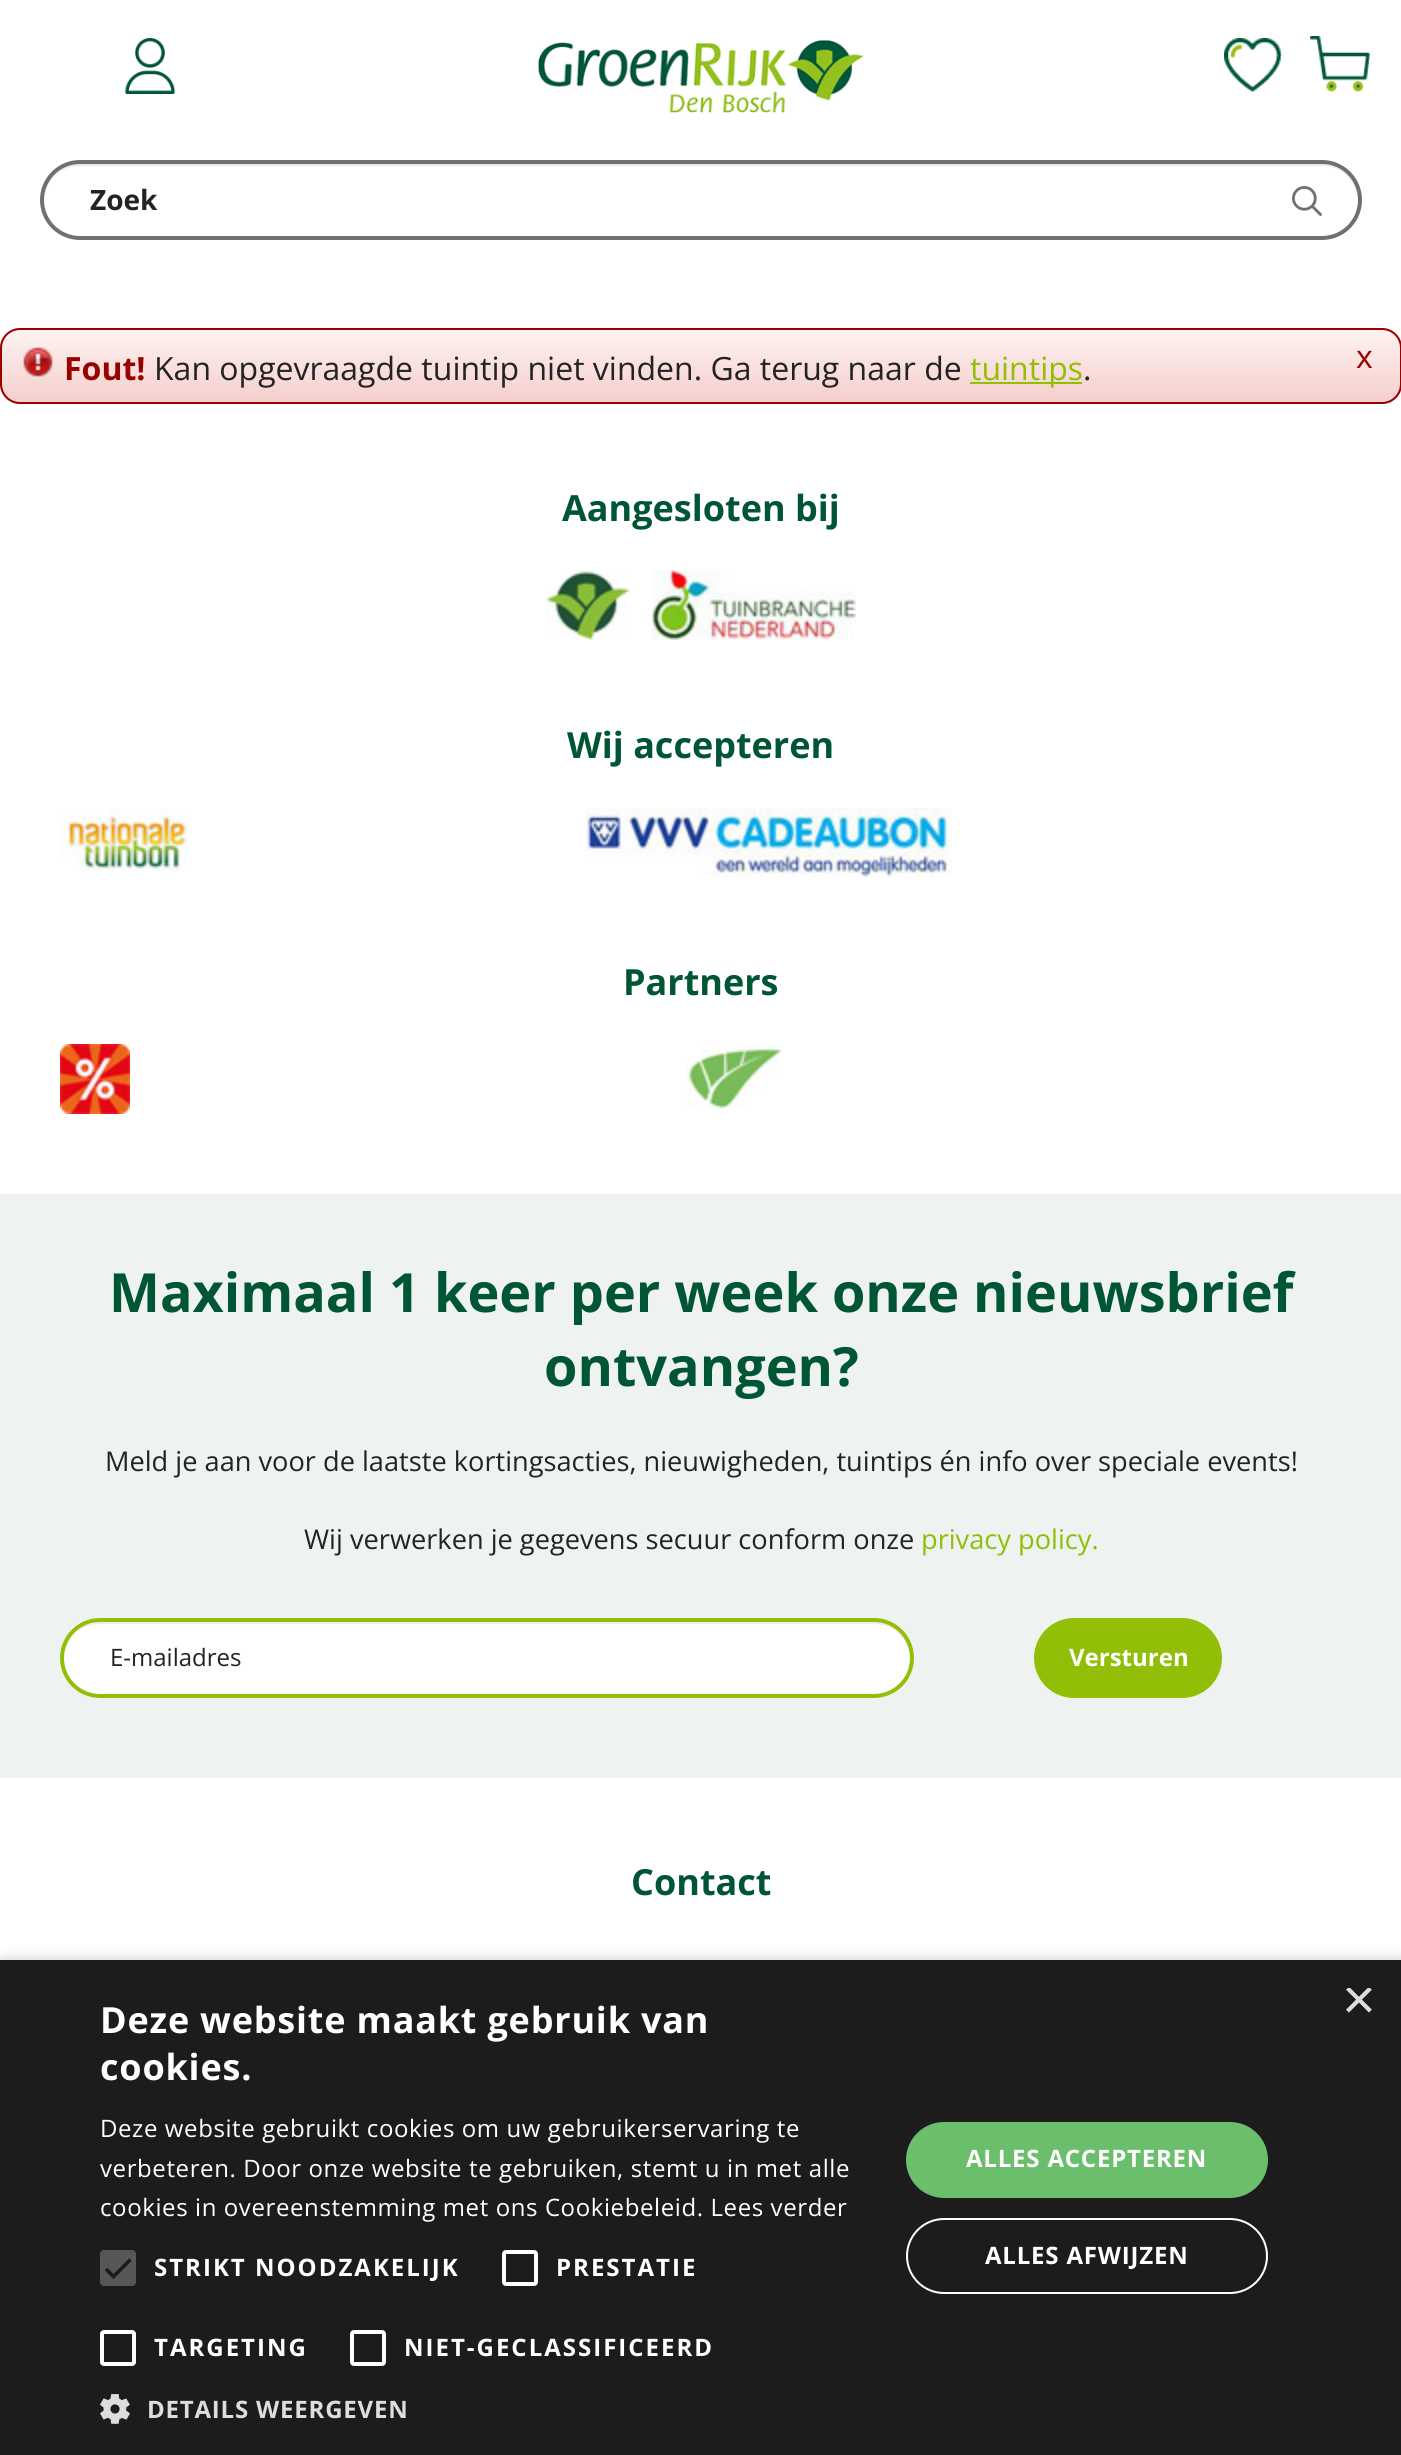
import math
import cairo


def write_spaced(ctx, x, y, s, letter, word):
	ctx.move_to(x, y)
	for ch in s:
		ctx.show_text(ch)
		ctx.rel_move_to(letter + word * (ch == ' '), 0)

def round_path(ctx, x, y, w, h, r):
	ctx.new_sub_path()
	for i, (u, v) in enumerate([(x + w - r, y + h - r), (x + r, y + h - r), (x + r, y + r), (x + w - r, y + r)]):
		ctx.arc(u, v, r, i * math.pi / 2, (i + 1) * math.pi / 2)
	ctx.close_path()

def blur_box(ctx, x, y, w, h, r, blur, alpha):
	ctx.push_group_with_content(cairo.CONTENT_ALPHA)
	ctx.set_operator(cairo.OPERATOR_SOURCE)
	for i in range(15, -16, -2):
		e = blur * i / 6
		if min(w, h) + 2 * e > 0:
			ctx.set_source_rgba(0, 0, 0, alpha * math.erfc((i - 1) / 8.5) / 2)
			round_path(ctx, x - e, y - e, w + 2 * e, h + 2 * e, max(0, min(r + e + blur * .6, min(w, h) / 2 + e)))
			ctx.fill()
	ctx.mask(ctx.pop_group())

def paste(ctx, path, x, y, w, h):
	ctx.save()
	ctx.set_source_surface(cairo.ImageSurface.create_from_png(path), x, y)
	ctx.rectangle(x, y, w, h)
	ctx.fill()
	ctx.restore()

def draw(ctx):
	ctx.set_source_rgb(1, 1, 1)
	ctx.paint()
	paste(ctx, 'media/1.png', 124, 38, 52, 56)
	paste(ctx, 'media/2.png', 538, 40, 326, 73)
	paste(ctx, 'media/3.png', 1224, 38, 58, 54)
	paste(ctx, 'media/4.png', 1310, 36, 60, 56)
	ctx.set_source_rgb(0.925, 0.925, 0.925)
	ctx.new_path()
	ctx.move_to(80, 166)
	ctx.line_to(1322, 166)
	ctx.curve_to(1342, 166, 1357, 181, 1358, 201)
	ctx.curve_to(1359, 181, 1342, 164, 1322, 164)
	ctx.line_to(80, 164)
	ctx.curve_to(60, 164, 43, 181, 44, 201)
	ctx.curve_to(45, 181, 60, 166, 80, 166)
	ctx.close_path()
	ctx.fill()
	round_path(ctx, 42, 162, 1318, 76, 38)
	ctx.set_source_rgb(0.439, 0.439, 0.439)
	ctx.set_line_width(4)
	ctx.stroke()
	ctx.select_font_face('Open Sans', cairo.FONT_SLANT_NORMAL, cairo.FONT_WEIGHT_BOLD)
	ctx.set_font_size(28)
	ctx.set_source_rgb(0.137, 0.137, 0.137)
	ctx.move_to(90, 210)
	ctx.show_text('Zoek')
	paste(ctx, 'media/5.png', 1292, 186, 30, 30)
	ctx.set_source_rgb(0.961, 0.816, 0.804)
	round_path(ctx, 0, 328, 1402, 76, 20)
	ctx.fill()
	paste(ctx, 'media/6.png', 0, 330, 1401, 70)
	round_path(ctx, 1, 329, 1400, 74, 19)
	ctx.set_source_rgb(0.6, 0, 0)
	ctx.set_line_width(2)
	ctx.stroke()
	paste(ctx, 'media/7.png', 23, 347, 30, 30)
	ctx.set_font_size(32)
	ctx.move_to(64, 380)
	ctx.show_text('Fout!')
	ctx.select_font_face('Open Sans')
	ctx.set_source_rgb(0.137, 0.137, 0.137)
	ctx.move_to(154, 380)
	ctx.show_text('Kan opgevraagde tuintip niet vinden. Ga terug naar de')
	ctx.set_source_rgb(0.569, 0.745, 0.024)
	ctx.rectangle(970, 382, 112, 2)
	ctx.fill()
	ctx.move_to(970, 380)
	ctx.show_text('tuintips')
	ctx.set_source_rgb(0.137, 0.137, 0.137)
	ctx.move_to(1083, 380)
	ctx.show_text('.')
	ctx.set_source_rgb(0.6, 0, 0)
	ctx.move_to(1356, 368)
	ctx.show_text('x')
	ctx.select_font_face('Open Sans', cairo.FONT_SLANT_NORMAL, cairo.FONT_WEIGHT_BOLD)
	ctx.set_font_size(36)
	ctx.set_source_rgb(0, 0.337, 0.204)
	ctx.move_to(562, 521)
	ctx.show_text('Aangesloten bij')
	paste(ctx, 'media/8.png', 546, 570, 84, 70)
	paste(ctx, 'media/9.png', 652, 570, 204, 70)
	ctx.move_to(567, 758)
	ctx.show_text('Wij accepteren')
	paste(ctx, 'media/10.png', 60, 808, 129, 64)
	paste(ctx, 'media/11.png', 586, 808, 366, 70)
	ctx.move_to(623, 995)
	ctx.show_text('Partners')
	paste(ctx, 'media/12.png', 60, 1044, 70, 70)
	paste(ctx, 'media/13.png', 686, 1044, 97, 65)
	ctx.set_source_rgb(0.933, 0.953, 0.945)
	ctx.rectangle(0, 1194, 1401, 584)
	ctx.fill()
	ctx.set_font_size(54)
	ctx.set_source_rgb(0, 0.337, 0.204)
	ctx.move_to(109, 1312)
	ctx.show_text('Maximaal 1 keer per week onze nieuwsbrief')
	ctx.move_to(544, 1386)
	ctx.show_text('ontvangen?')
	ctx.select_font_face('Open Sans')
	ctx.set_font_size(27.2)
	ctx.set_source_rgb(0.137, 0.137, 0.137)
	ctx.move_to(105, 1471)
	ctx.show_text('Meld je aan voor de laatste kortingsacties, nieuwigheden, tuintips én info over speciale events!')
	ctx.move_to(304, 1549)
	ctx.show_text('Wij verwerken je gegevens secuur conform onze')
	ctx.set_source_rgb(0.569, 0.745, 0.024)
	ctx.move_to(921, 1549)
	ctx.show_text('privacy policy.')
	ctx.set_source_rgb(1, 1, 1)
	round_path(ctx, 60, 1618, 854, 80, 40)
	ctx.fill()
	ctx.set_source_rgb(0.925, 0.925, 0.925)
	ctx.new_path()
	ctx.move_to(100, 1624)
	ctx.line_to(874, 1624)
	ctx.curve_to(894, 1624, 909, 1639, 910, 1659)
	ctx.curve_to(911, 1639, 894, 1622, 874, 1622)
	ctx.line_to(100, 1622)
	ctx.curve_to(80, 1622, 63, 1639, 64, 1659)
	ctx.curve_to(65, 1639, 80, 1624, 100, 1624)
	ctx.close_path()
	ctx.fill()
	round_path(ctx, 62, 1620, 850, 76, 38)
	ctx.set_source_rgb(0.569, 0.745, 0.024)
	ctx.set_line_width(4)
	ctx.stroke()
	ctx.set_font_size(24)
	ctx.set_source_rgb(0.137, 0.137, 0.137)
	ctx.move_to(110, 1666)
	ctx.show_text('E-mailadres')
	ctx.set_source_rgb(0.569, 0.745, 0.024)
	round_path(ctx, 1034, 1618, 188, 80, 40)
	ctx.fill()
	ctx.select_font_face('Open Sans', cairo.FONT_SLANT_NORMAL, cairo.FONT_WEIGHT_BOLD)
	ctx.set_source_rgb(1, 1, 1)
	ctx.move_to(1069, 1666)
	ctx.show_text('Versturen')
	ctx.set_font_size(36)
	ctx.set_source_rgb(0, 0.337, 0.204)
	ctx.move_to(631, 1895)
	ctx.show_text('Contact')
	ctx.set_source_rgb(0, 0, 0)
	blur_box(ctx, 2, 1964, 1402, 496, 0, 8, 0.35)
	ctx.set_source_rgb(0.11, 0.11, 0.11)
	ctx.rectangle(0, 1960, 1401, 495)
	ctx.fill()
	ctx.save()
	ctx.rectangle(1342, 1988, 30, 30)
	ctx.clip()
	ctx.select_font_face('Liberation Sans')
	ctx.set_font_size(58)
	ctx.set_source_rgb(0.867, 0.867, 0.867)
	ctx.move_to(1342, 2019)
	ctx.show_text('×')
	ctx.restore()
	ctx.set_source_rgb(1, 1, 1)
	write_spaced(ctx, 100, 2033, 'Deze website maakt gebruik van', 0.8, 0)
	write_spaced(ctx, 100, 2080, 'cookies.', 0.8, 0)
	ctx.select_font_face('Open Sans')
	ctx.set_font_size(24)
	for x, y, s in [
		(100, 2137, 'Deze website gebruikt cookies om uw gebruikerservaring te'),
		(100, 2177, 'verbeteren. Door onze website te gebruiken, stemt u in met alle'),
		(100, 2216, 'cookies in overeenstemming met ons Cookiebeleid. Lees verder'),
	]:
		write_spaced(ctx, x, y, s, 0.6, 0)
	ctx.set_source_rgb(0.341, 0.341, 0.341)
	round_path(ctx, 100, 2250, 36, 36, 4)
	ctx.fill()
	ctx.new_path()
	ctx.move_to(106, 2269)
	ctx.line_to(113.5, 2276.5)
	ctx.line_to(130.5, 2259.5)
	ctx.set_source_rgb(0.11, 0.11, 0.11)
	ctx.set_line_width(3.6)
	ctx.stroke()
	ctx.select_font_face('Open Sans', cairo.FONT_SLANT_NORMAL, cairo.FONT_WEIGHT_BOLD)
	ctx.set_source_rgb(1, 1, 1)
	write_spaced(ctx, 154, 2276, 'STRIKT NOODZAKELIJK', 2, 0)
	round_path(ctx, 504, 2252, 32, 32, 2)
	ctx.set_line_width(4)
	ctx.stroke()
	write_spaced(ctx, 556, 2276, 'PRESTATIE', 2, 0)
	round_path(ctx, 102, 2332, 32, 32, 2)
	ctx.stroke()
	write_spaced(ctx, 154, 2356, 'TARGETING', 2, 0)
	round_path(ctx, 352, 2332, 32, 32, 2)
	ctx.stroke()
	write_spaced(ctx, 404, 2356, 'NIET-GECLASSIFICEERD', 2, 0)
	paste(ctx, 'media/14.png', 100, 2394, 30, 30)
	ctx.set_source_rgb(0.867, 0.867, 0.867)
	write_spaced(ctx, 147, 2418, 'DETAILS WEERGEVEN', 0.8, 0)
	ctx.set_source_rgb(0.42, 0.745, 0.42)
	round_path(ctx, 906, 2122, 362, 76, 38)
	ctx.fill()
	ctx.set_source_rgb(1, 1, 1)
	write_spaced(ctx, 966, 2167, 'ALLES ACCEPTEREN', 0.8, 0)
	round_path(ctx, 907, 2219, 360, 74, 37)
	ctx.set_line_width(2)
	ctx.stroke()
	write_spaced(ctx, 985, 2264, 'ALLES AFWIJZEN', 0.8, 0)


surface = cairo.ImageSurface(cairo.FORMAT_RGB24, 1401, 2455)
ctx = cairo.Context(surface)
options = cairo.FontOptions()
options.set_hint_metrics(cairo.HINT_METRICS_OFF)
options.set_hint_style(cairo.HINT_STYLE_NONE)
ctx.set_font_options(options)
ctx.set_miter_limit(4)
draw(ctx)
surface.write_to_png('image.png')
